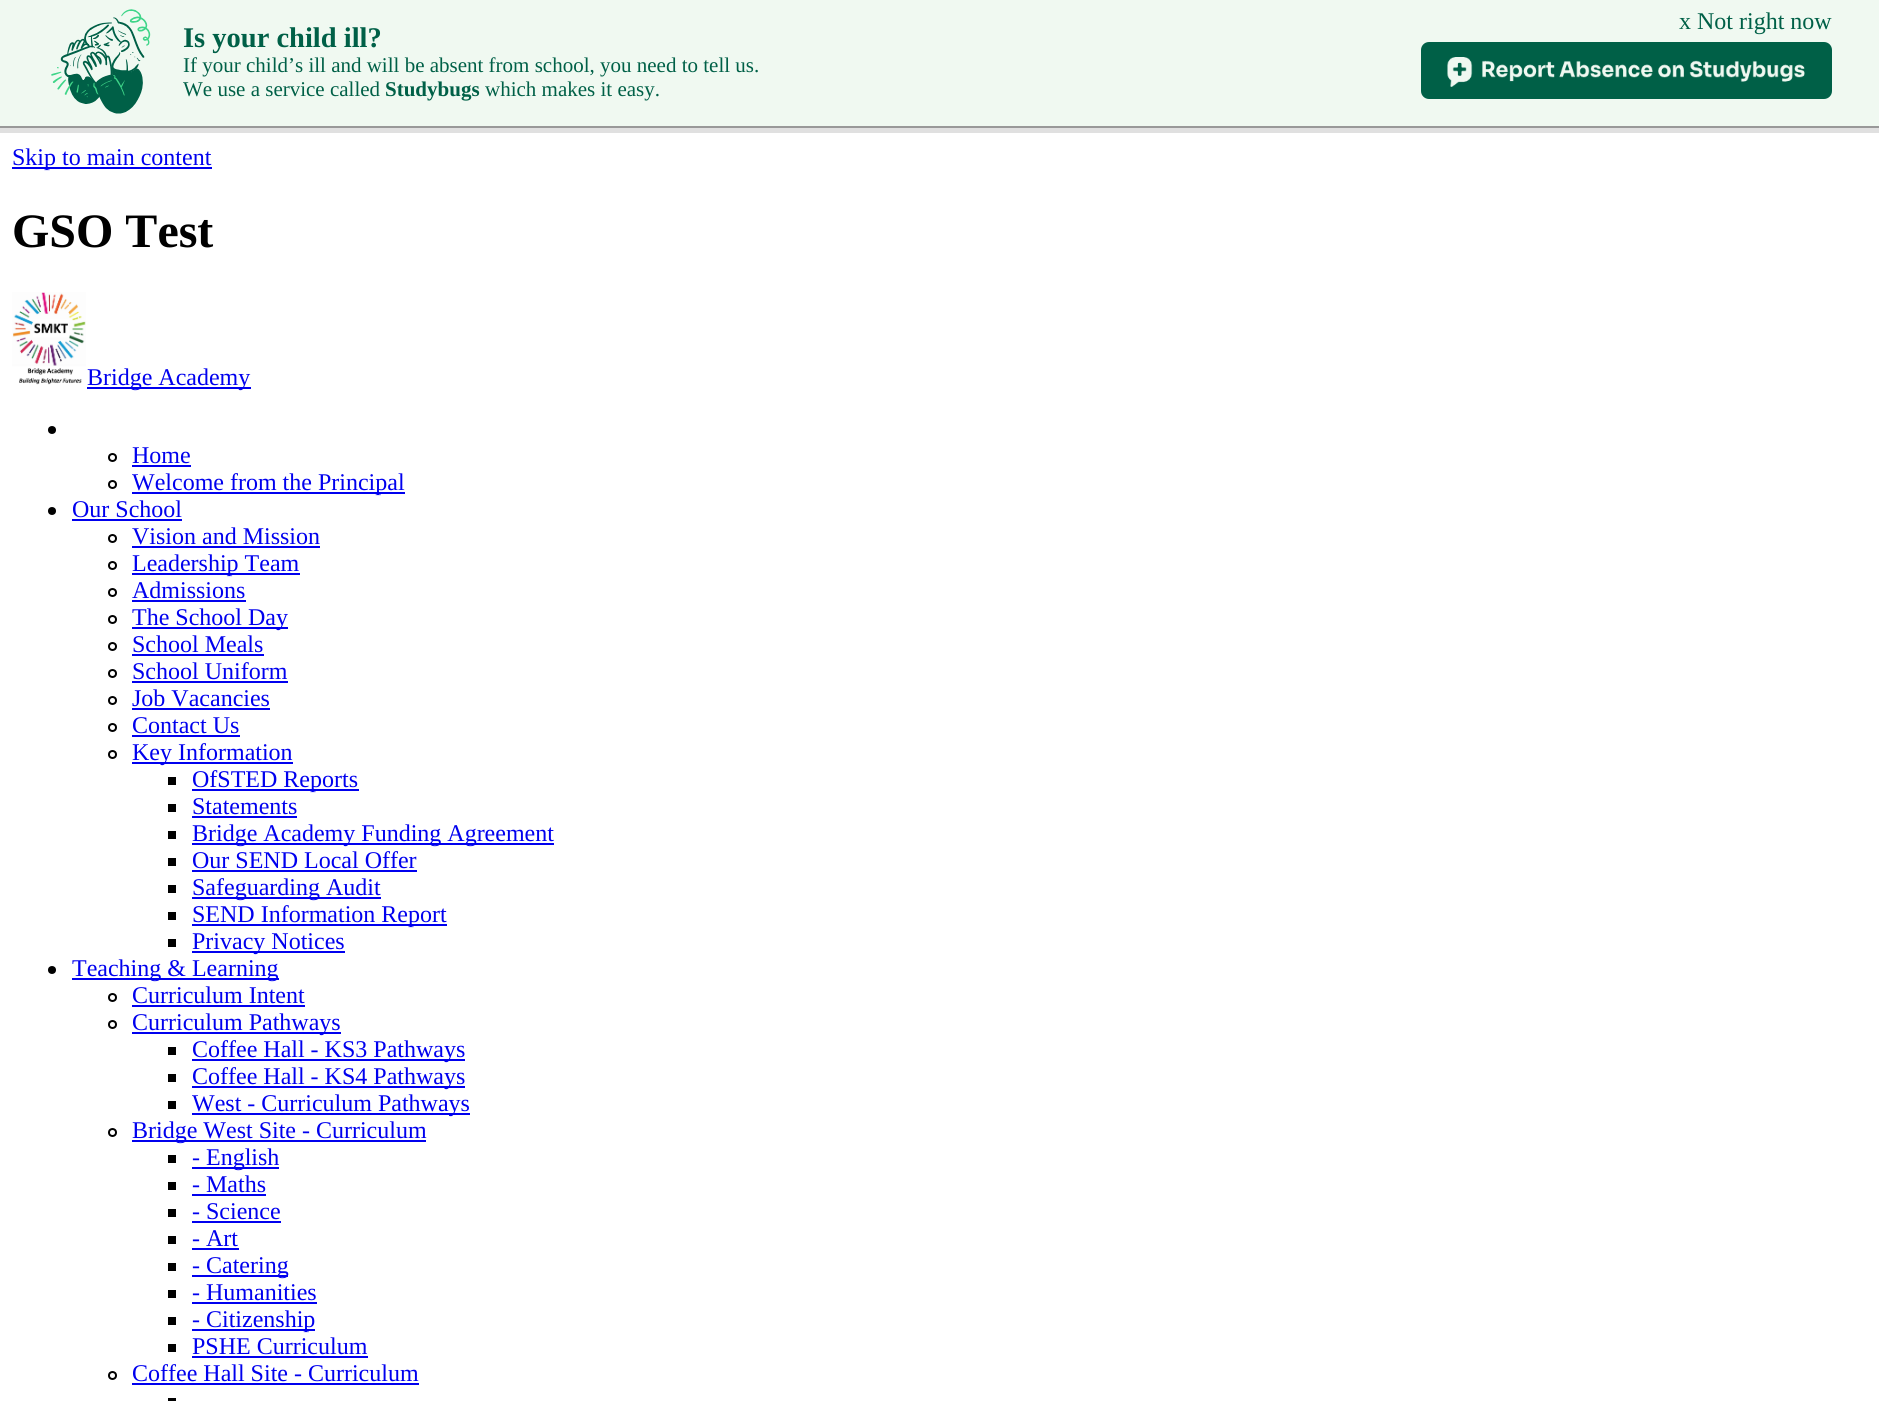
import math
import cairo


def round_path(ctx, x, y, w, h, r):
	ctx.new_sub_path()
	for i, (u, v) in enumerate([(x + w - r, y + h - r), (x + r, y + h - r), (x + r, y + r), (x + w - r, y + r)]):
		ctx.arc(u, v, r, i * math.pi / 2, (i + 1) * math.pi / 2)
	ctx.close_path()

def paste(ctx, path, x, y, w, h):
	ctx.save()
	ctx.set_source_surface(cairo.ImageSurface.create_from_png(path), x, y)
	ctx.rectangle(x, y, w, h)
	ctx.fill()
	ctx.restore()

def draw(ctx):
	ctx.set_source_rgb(1, 1, 1)
	ctx.paint()
	ctx.set_source_rgb(0.878, 0.878, 0.878)
	ctx.rectangle(0, 128, 1879, 5)
	ctx.fill()
	ctx.set_source_rgb(0.941, 0.973, 0.945)
	ctx.rectangle(0, 0, 1879, 126)
	ctx.fill()
	ctx.set_source_rgb(0.6, 0.6, 0.6)
	ctx.rectangle(0, 126, 1879, 2)
	ctx.fill()
	ctx.select_font_face('Liberation Serif')
	ctx.set_font_size(24)
	ctx.set_source_rgb(0, 0.376, 0.278)
	ctx.move_to(1679, 29)
	ctx.show_text('x Not right now')
	round_path(ctx, 1421, 42, 411, 57, 8)
	ctx.fill()
	paste(ctx, 'media/1.png', 1447, 57, 358, 30)
	paste(ctx, 'media/2.png', 51, 9, 100, 105)
	ctx.select_font_face('Liberation Serif', cairo.FONT_SLANT_NORMAL, cairo.FONT_WEIGHT_BOLD)
	ctx.set_font_size(28.5)
	ctx.move_to(183, 47)
	ctx.show_text('Is your child ill?')
	ctx.select_font_face('Liberation Serif')
	ctx.set_font_size(21)
	ctx.move_to(183, 72)
	ctx.show_text('If your child’s ill and will be absent from school, you need to tell us.')
	ctx.move_to(183, 96)
	ctx.show_text('We use a service called')
	ctx.select_font_face('Liberation Serif', cairo.FONT_SLANT_NORMAL, cairo.FONT_WEIGHT_BOLD)
	ctx.move_to(385, 96)
	ctx.show_text('Studybugs')
	ctx.select_font_face('Liberation Serif')
	ctx.move_to(485, 96)
	ctx.show_text('which makes it easy.')
	ctx.set_source_rgb(0, 0, 0.933)
	ctx.rectangle(12, 167, 200, 2)
	ctx.fill()
	ctx.set_font_size(24)
	ctx.move_to(12, 165)
	ctx.show_text('Skip to main content')
	ctx.select_font_face('Liberation Serif', cairo.FONT_SLANT_NORMAL, cairo.FONT_WEIGHT_BOLD)
	ctx.set_font_size(48)
	ctx.set_source_rgb(0, 0, 0)
	ctx.move_to(12, 247)
	ctx.show_text('GSO Test')
	paste(ctx, 'media/3.png', 12, 292, 74, 93)
	ctx.set_source_rgb(0, 0, 0.933)
	ctx.rectangle(87, 387, 164, 2)
	ctx.fill()
	ctx.select_font_face('Liberation Serif')
	ctx.set_font_size(24)
	ctx.move_to(87, 385)
	ctx.show_text('Bridge Academy')
	ctx.set_source_rgb(0, 0, 0)
	ctx.new_path()
	ctx.arc(52, 430, 4, 0, 2 * math.pi)
	ctx.fill()
	ctx.arc(112.5, 457.5, 3.5, 0, 2 * math.pi)
	ctx.stroke()
	ctx.set_source_rgb(0, 0, 0.933)
	ctx.move_to(132, 463)
	ctx.show_text('Home')
	ctx.rectangle(132, 465, 59, 2)
	ctx.fill()
	ctx.arc(112.5, 484.5, 3.5, 0, 2 * math.pi)
	ctx.set_source_rgb(0, 0, 0)
	ctx.stroke()
	ctx.set_source_rgb(0, 0, 0.933)
	ctx.rectangle(132, 492, 273, 2)
	ctx.fill()
	ctx.move_to(132, 490)
	ctx.show_text('Welcome from the Principal')
	ctx.set_source_rgb(0, 0, 0)
	ctx.new_path()
	ctx.arc(52, 511, 4, 0, 2 * math.pi)
	ctx.fill()
	ctx.set_source_rgb(0, 0, 0.933)
	ctx.move_to(72, 517)
	ctx.show_text('Our School')
	ctx.rectangle(72, 519, 110, 2)
	ctx.fill()
	ctx.arc(112.5, 538.5, 3.5, 0, 2 * math.pi)
	ctx.set_source_rgb(0, 0, 0)
	ctx.stroke()
	ctx.set_source_rgb(0, 0, 0.933)
	ctx.move_to(132, 544)
	ctx.show_text('Vision and Mission')
	ctx.rectangle(132, 546, 188, 2)
	ctx.fill()
	ctx.arc(112.5, 565.5, 3.5, 0, 2 * math.pi)
	ctx.set_source_rgb(0, 0, 0)
	ctx.stroke()
	ctx.set_source_rgb(0, 0, 0.933)
	ctx.rectangle(132, 573, 168, 2)
	ctx.fill()
	ctx.move_to(132, 571)
	ctx.show_text('Leadership Team')
	ctx.new_path()
	ctx.arc(112.5, 592.5, 3.5, 0, 2 * math.pi)
	ctx.set_source_rgb(0, 0, 0)
	ctx.stroke()
	ctx.set_source_rgb(0, 0, 0.933)
	ctx.move_to(132, 598)
	ctx.show_text('Admissions')
	ctx.rectangle(132, 600, 114, 2)
	ctx.fill()
	ctx.arc(112.5, 619.5, 3.5, 0, 2 * math.pi)
	ctx.set_source_rgb(0, 0, 0)
	ctx.stroke()
	ctx.set_source_rgb(0, 0, 0.933)
	ctx.rectangle(132, 627, 156, 2)
	ctx.fill()
	ctx.move_to(132, 625)
	ctx.show_text('The School Day')
	ctx.new_path()
	ctx.arc(112.5, 646.5, 3.5, 0, 2 * math.pi)
	ctx.set_source_rgb(0, 0, 0)
	ctx.stroke()
	ctx.set_source_rgb(0, 0, 0.933)
	ctx.move_to(132, 652)
	ctx.show_text('School Meals')
	ctx.rectangle(132, 654, 132, 2)
	ctx.fill()
	ctx.arc(112.5, 673.5, 3.5, 0, 2 * math.pi)
	ctx.set_source_rgb(0, 0, 0)
	ctx.stroke()
	ctx.set_source_rgb(0, 0, 0.933)
	ctx.move_to(132, 679)
	ctx.show_text('School Uniform')
	ctx.rectangle(132, 681, 156, 2)
	ctx.fill()
	ctx.arc(112.5, 700.5, 3.5, 0, 2 * math.pi)
	ctx.set_source_rgb(0, 0, 0)
	ctx.stroke()
	ctx.set_source_rgb(0, 0, 0.933)
	ctx.move_to(132, 706)
	ctx.show_text('Job Vacancies')
	ctx.rectangle(132, 708, 138, 2)
	ctx.fill()
	ctx.arc(112.5, 727.5, 3.5, 0, 2 * math.pi)
	ctx.set_source_rgb(0, 0, 0)
	ctx.stroke()
	ctx.set_source_rgb(0, 0, 0.933)
	ctx.move_to(132, 733)
	ctx.show_text('Contact Us')
	ctx.rectangle(132, 735, 108, 2)
	ctx.fill()
	ctx.arc(112.5, 754.5, 3.5, 0, 2 * math.pi)
	ctx.set_source_rgb(0, 0, 0)
	ctx.stroke()
	ctx.set_source_rgb(0, 0, 0.933)
	ctx.rectangle(132, 762, 161, 2)
	ctx.fill()
	ctx.move_to(132, 760)
	ctx.show_text('Key Information')
	ctx.set_source_rgb(0, 0, 0)
	ctx.rectangle(168, 777, 8, 8)
	ctx.fill()
	ctx.set_source_rgb(0, 0, 0.933)
	ctx.rectangle(192, 789, 167, 2)
	ctx.fill()
	ctx.move_to(192, 787)
	ctx.show_text('OfSTED Reports')
	ctx.set_source_rgb(0, 0, 0)
	ctx.rectangle(168, 804, 8, 8)
	ctx.fill()
	ctx.set_source_rgb(0, 0, 0.933)
	ctx.move_to(192, 814)
	ctx.show_text('Statements')
	ctx.rectangle(192, 816, 105, 2)
	ctx.fill()
	ctx.set_source_rgb(0, 0, 0)
	ctx.rectangle(168, 831, 8, 8)
	ctx.fill()
	ctx.set_source_rgb(0, 0, 0.933)
	ctx.rectangle(192, 843, 362, 2)
	ctx.fill()
	ctx.move_to(192, 841)
	ctx.show_text('Bridge Academy Funding Agreement')
	ctx.set_source_rgb(0, 0, 0)
	ctx.rectangle(168, 858, 8, 8)
	ctx.fill()
	ctx.set_source_rgb(0, 0, 0.933)
	ctx.move_to(192, 868)
	ctx.show_text('Our SEND Local Offer')
	ctx.rectangle(192, 870, 225, 2)
	ctx.fill()
	ctx.set_source_rgb(0, 0, 0)
	ctx.rectangle(168, 885, 8, 8)
	ctx.fill()
	ctx.set_source_rgb(0, 0, 0.933)
	ctx.rectangle(192, 897, 189, 2)
	ctx.fill()
	ctx.move_to(192, 895)
	ctx.show_text('Safeguarding Audit')
	ctx.set_source_rgb(0, 0, 0)
	ctx.rectangle(168, 912, 8, 8)
	ctx.fill()
	ctx.set_source_rgb(0, 0, 0.933)
	ctx.rectangle(192, 924, 255, 2)
	ctx.fill()
	ctx.move_to(192, 922)
	ctx.show_text('SEND Information Report')
	ctx.set_source_rgb(0, 0, 0)
	ctx.rectangle(168, 939, 8, 8)
	ctx.fill()
	ctx.set_source_rgb(0, 0, 0.933)
	ctx.rectangle(192, 951, 153, 2)
	ctx.fill()
	ctx.move_to(192, 949)
	ctx.show_text('Privacy Notices')
	ctx.set_source_rgb(0, 0, 0)
	ctx.new_path()
	ctx.arc(52, 970, 4, 0, 2 * math.pi)
	ctx.fill()
	ctx.set_source_rgb(0, 0, 0.933)
	ctx.rectangle(72, 978, 207, 2)
	ctx.fill()
	ctx.move_to(72, 976)
	ctx.show_text('Teaching & Learning')
	ctx.new_path()
	ctx.arc(112.5, 997.5, 3.5, 0, 2 * math.pi)
	ctx.set_source_rgb(0, 0, 0)
	ctx.stroke()
	ctx.set_source_rgb(0, 0, 0.933)
	ctx.move_to(132, 1003)
	ctx.show_text('Curriculum Intent')
	ctx.rectangle(132, 1005, 173, 2)
	ctx.fill()
	ctx.arc(112.5, 1024.5, 3.5, 0, 2 * math.pi)
	ctx.set_source_rgb(0, 0, 0)
	ctx.stroke()
	ctx.set_source_rgb(0, 0, 0.933)
	ctx.rectangle(132, 1032, 209, 2)
	ctx.fill()
	ctx.move_to(132, 1030)
	ctx.show_text('Curriculum Pathways')
	ctx.set_source_rgb(0, 0, 0)
	ctx.rectangle(168, 1047, 8, 8)
	ctx.fill()
	ctx.set_source_rgb(0, 0, 0.933)
	ctx.rectangle(192, 1059, 273, 2)
	ctx.fill()
	ctx.move_to(192, 1057)
	ctx.show_text('Coffee Hall - KS3 Pathways')
	ctx.set_source_rgb(0, 0, 0)
	ctx.rectangle(168, 1074, 8, 8)
	ctx.fill()
	ctx.set_source_rgb(0, 0, 0.933)
	ctx.rectangle(192, 1086, 273, 2)
	ctx.fill()
	ctx.move_to(192, 1084)
	ctx.show_text('Coffee Hall - KS4 Pathways')
	ctx.set_source_rgb(0, 0, 0)
	ctx.rectangle(168, 1101, 8, 8)
	ctx.fill()
	ctx.set_source_rgb(0, 0, 0.933)
	ctx.rectangle(192, 1113, 278, 2)
	ctx.fill()
	ctx.move_to(192, 1111)
	ctx.show_text('West - Curriculum Pathways')
	ctx.new_path()
	ctx.arc(112.5, 1132.5, 3.5, 0, 2 * math.pi)
	ctx.set_source_rgb(0, 0, 0)
	ctx.stroke()
	ctx.set_source_rgb(0, 0, 0.933)
	ctx.rectangle(132, 1140, 294, 2)
	ctx.fill()
	ctx.move_to(132, 1138)
	ctx.show_text('Bridge West Site - Curriculum')
	ctx.set_source_rgb(0, 0, 0)
	ctx.rectangle(168, 1155, 8, 8)
	ctx.fill()
	ctx.set_source_rgb(0, 0, 0.933)
	ctx.rectangle(192, 1167, 87, 2)
	ctx.fill()
	ctx.move_to(192, 1165)
	ctx.show_text('- English')
	ctx.set_source_rgb(0, 0, 0)
	ctx.rectangle(168, 1182, 8, 8)
	ctx.fill()
	ctx.set_source_rgb(0, 0, 0.933)
	ctx.move_to(192, 1192)
	ctx.show_text('- Maths')
	ctx.rectangle(192, 1194, 74, 2)
	ctx.fill()
	ctx.set_source_rgb(0, 0, 0)
	ctx.rectangle(168, 1209, 8, 8)
	ctx.fill()
	ctx.set_source_rgb(0, 0, 0.933)
	ctx.move_to(192, 1219)
	ctx.show_text('- Science')
	ctx.rectangle(192, 1221, 89, 2)
	ctx.fill()
	ctx.set_source_rgb(0, 0, 0)
	ctx.rectangle(168, 1236, 8, 8)
	ctx.fill()
	ctx.set_source_rgb(0, 0, 0.933)
	ctx.move_to(192, 1246)
	ctx.show_text('- Art')
	ctx.rectangle(192, 1248, 47, 2)
	ctx.fill()
	ctx.set_source_rgb(0, 0, 0)
	ctx.rectangle(168, 1263, 8, 8)
	ctx.fill()
	ctx.set_source_rgb(0, 0, 0.933)
	ctx.rectangle(192, 1275, 96, 2)
	ctx.fill()
	ctx.move_to(192, 1273)
	ctx.show_text('- Catering')
	ctx.set_source_rgb(0, 0, 0)
	ctx.rectangle(168, 1290, 8, 8)
	ctx.fill()
	ctx.set_source_rgb(0, 0, 0.933)
	ctx.move_to(192, 1300)
	ctx.show_text('- Humanities')
	ctx.rectangle(192, 1302, 125, 2)
	ctx.fill()
	ctx.set_source_rgb(0, 0, 0)
	ctx.rectangle(168, 1317, 8, 8)
	ctx.fill()
	ctx.set_source_rgb(0, 0, 0.933)
	ctx.rectangle(192, 1329, 123, 2)
	ctx.fill()
	ctx.move_to(192, 1327)
	ctx.show_text('- Citizenship')
	ctx.set_source_rgb(0, 0, 0)
	ctx.rectangle(168, 1344, 8, 8)
	ctx.fill()
	ctx.set_source_rgb(0, 0, 0.933)
	ctx.move_to(192, 1354)
	ctx.show_text('PSHE Curriculum')
	ctx.rectangle(192, 1356, 176, 2)
	ctx.fill()
	ctx.arc(112.5, 1375.5, 3.5, 0, 2 * math.pi)
	ctx.set_source_rgb(0, 0, 0)
	ctx.stroke()
	ctx.set_source_rgb(0, 0, 0.933)
	ctx.move_to(132, 1381)
	ctx.show_text('Coffee Hall Site - Curriculum')
	ctx.rectangle(132, 1383, 287, 2)
	ctx.fill()
	ctx.set_source_rgb(0, 0, 0)
	ctx.rectangle(168, 1398, 8, 3)
	ctx.fill()


surface = cairo.ImageSurface(cairo.FORMAT_RGB24, 1879, 1401)
ctx = cairo.Context(surface)
options = cairo.FontOptions()
options.set_hint_metrics(cairo.HINT_METRICS_OFF)
options.set_hint_style(cairo.HINT_STYLE_NONE)
ctx.set_font_options(options)
ctx.set_miter_limit(4)
draw(ctx)
surface.write_to_png('image.png')
